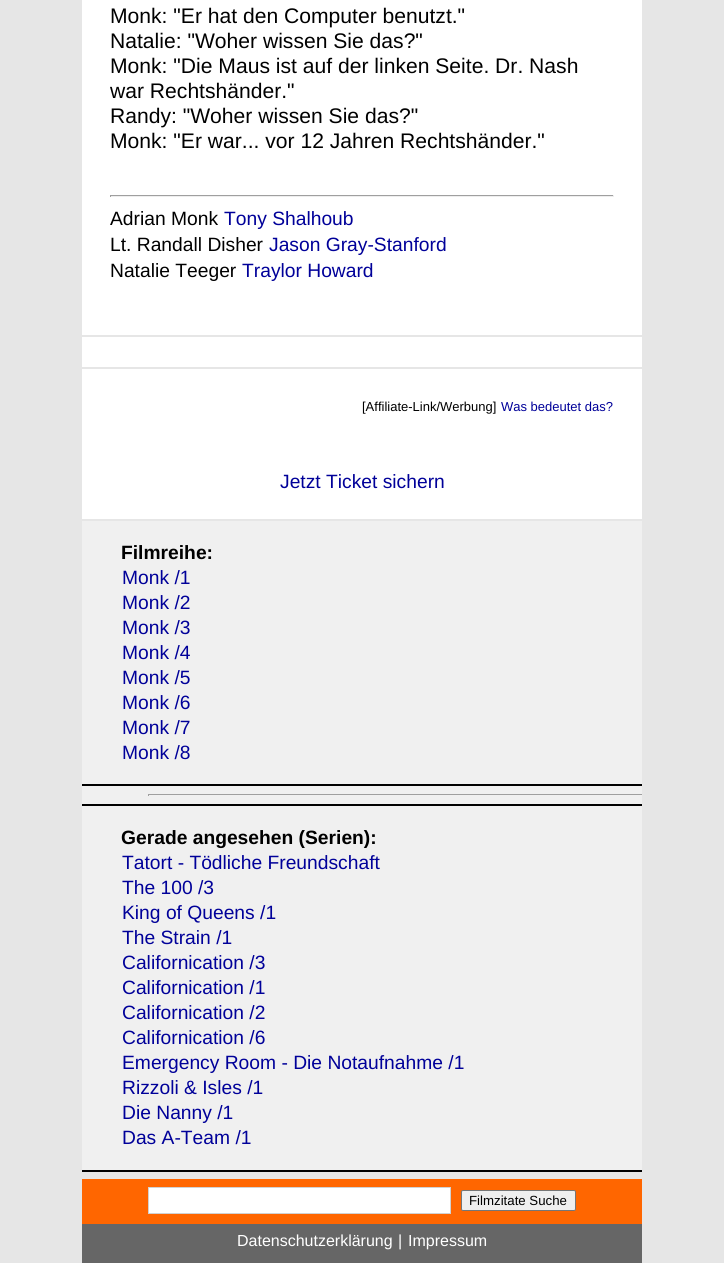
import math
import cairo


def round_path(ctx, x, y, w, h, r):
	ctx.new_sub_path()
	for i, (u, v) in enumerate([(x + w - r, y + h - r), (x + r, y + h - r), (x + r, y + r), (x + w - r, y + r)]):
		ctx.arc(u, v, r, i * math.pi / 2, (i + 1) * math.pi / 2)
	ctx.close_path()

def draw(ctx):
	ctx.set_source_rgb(0.902, 0.902, 0.902)
	ctx.paint()
	ctx.set_source_rgb(1, 1, 1)
	ctx.rectangle(82, 0, 560, 335)
	ctx.fill()
	ctx.select_font_face('Liberation Sans')
	ctx.set_font_size(21.1)
	ctx.set_source_rgb(0, 0, 0)
	for x, y, s in [
		(110, 23, 'Monk: "Er hat den Computer benutzt."'),
		(110, 48, 'Natalie: "Woher wissen Sie das?"'),
		(110, 73, 'Monk: "Die Maus ist auf der linken Seite. Dr. Nash'),
		(110, 98, 'war Rechtshänder."'),
		(110, 123, 'Randy: "Woher wissen Sie das?"'),
		(110, 148, 'Monk: "Er war... vor 12 Jahren Rechtshänder."'),
	]:
		ctx.move_to(x, y)
		ctx.show_text(s)
	ctx.set_source_rgb(0.624, 0.624, 0.624)
	ctx.rectangle(110, 195, 504, 1)
	ctx.fill()
	ctx.set_source_rgb(0.933, 0.933, 0.933)
	ctx.rectangle(613, 195, 1, 2)
	ctx.rectangle(110, 196, 504, 1)
	ctx.fill()
	ctx.set_source_rgb(0.624, 0.624, 0.624)
	ctx.rectangle(110, 195, 1, 2)
	ctx.fill()
	ctx.set_font_size(19.25)
	ctx.set_source_rgb(0, 0, 0)
	ctx.move_to(110, 225)
	ctx.show_text('Adrian Monk')
	ctx.set_source_rgb(0, 0, 0.6)
	ctx.move_to(224, 225)
	ctx.show_text('Tony Shalhoub')
	ctx.set_source_rgb(0, 0, 0)
	ctx.move_to(110, 251)
	ctx.show_text('Lt. Randall Disher')
	ctx.set_source_rgb(0, 0, 0.6)
	ctx.move_to(269, 251)
	ctx.show_text('Jason Gray-Stanford')
	ctx.set_source_rgb(0, 0, 0)
	ctx.move_to(110, 277)
	ctx.show_text('Natalie Teeger')
	ctx.set_source_rgb(0, 0, 0.6)
	ctx.move_to(242, 277)
	ctx.show_text('Traylor Howard')
	ctx.set_source_rgb(1, 1, 1)
	ctx.rectangle(82, 337, 560, 30)
	ctx.fill()
	ctx.rectangle(82, 369, 560, 150)
	ctx.fill()
	ctx.set_font_size(13)
	ctx.set_source_rgb(0, 0, 0)
	ctx.move_to(362, 411)
	ctx.show_text('[Affiliate-Link/Werbung]')
	ctx.set_source_rgb(0, 0, 0.6)
	ctx.move_to(501, 411)
	ctx.show_text('Was bedeutet das?')
	ctx.set_font_size(19.25)
	ctx.move_to(280, 488)
	ctx.show_text('Jetzt Ticket sichern')
	ctx.set_source_rgb(0, 0, 0)
	ctx.rectangle(82, 784, 560, 388)
	ctx.fill()
	ctx.set_source_rgb(0.941, 0.941, 0.941)
	ctx.rectangle(82, 521, 560, 263)
	ctx.fill()
	ctx.select_font_face('Liberation Sans', cairo.FONT_SLANT_NORMAL, cairo.FONT_WEIGHT_BOLD)
	ctx.set_source_rgb(0, 0, 0)
	ctx.move_to(121, 559)
	ctx.show_text('Filmreihe:')
	ctx.select_font_face('Liberation Sans')
	ctx.set_source_rgb(0, 0, 0.6)
	for x, y, s in [
		(122, 584, 'Monk /1'),
		(122, 609, 'Monk /2'),
		(122, 634, 'Monk /3'),
		(122, 659, 'Monk /4'),
		(122, 684, 'Monk /5'),
		(122, 709, 'Monk /6'),
		(122, 734, 'Monk /7'),
		(122, 759, 'Monk /8'),
	]:
		ctx.move_to(x, y)
		ctx.show_text(s)
	ctx.set_source_rgb(0.941, 0.941, 0.941)
	ctx.rectangle(82, 786, 560, 18)
	ctx.fill()
	ctx.set_source_rgb(0.624, 0.624, 0.624)
	ctx.rectangle(148, 794, 494, 1)
	ctx.rectangle(148, 794, 1, 2)
	ctx.fill()
	ctx.set_source_rgb(0.941, 0.941, 0.941)
	ctx.rectangle(82, 806, 560, 364)
	ctx.fill()
	ctx.select_font_face('Liberation Sans', cairo.FONT_SLANT_NORMAL, cairo.FONT_WEIGHT_BOLD)
	ctx.set_source_rgb(0, 0, 0)
	ctx.move_to(121, 844)
	ctx.show_text('Gerade angesehen (Serien):')
	ctx.select_font_face('Liberation Sans')
	ctx.set_source_rgb(0, 0, 0.6)
	for x, y, s in [
		(122, 869, 'Tatort - Tödliche Freundschaft'),
		(122, 894, 'The 100 /3'),
		(122, 919, 'King of Queens /1'),
		(122, 944, 'The Strain /1'),
		(122, 969, 'Californication /3'),
		(122, 994, 'Californication /1'),
		(122, 1019, 'Californication /2'),
		(122, 1044, 'Californication /6'),
		(122, 1069, 'Emergency Room - Die Notaufnahme /1'),
		(122, 1094, 'Rizzoli & Isles /1'),
		(122, 1119, 'Die Nanny /1'),
		(122, 1144, 'Das A-Team /1'),
	]:
		ctx.move_to(x, y)
		ctx.show_text(s)
	ctx.set_source_rgb(0.4, 0.4, 0.4)
	ctx.rectangle(82, 1224, 560, 39)
	ctx.fill()
	ctx.set_source_rgb(1, 0.4, 0)
	ctx.rectangle(82, 1179, 560, 45)
	ctx.fill()
	ctx.set_source_rgb(1, 1, 1)
	ctx.rectangle(148.5, 1187.5, 302, 26)
	ctx.fill_preserve()
	ctx.set_source_rgb(0.82, 0.82, 0.82)
	ctx.set_line_width(1)
	ctx.stroke()
	ctx.set_source_rgb(0.937, 0.937, 0.937)
	round_path(ctx, 461.5, 1190.5, 114, 20, 1.5)
	ctx.fill_preserve()
	ctx.set_source_rgb(0.463, 0.463, 0.463)
	ctx.stroke()
	ctx.set_font_size(13.25)
	ctx.set_source_rgb(0, 0, 0)
	ctx.move_to(469, 1205)
	ctx.show_text('Filmzitate Suche')
	ctx.set_font_size(16)
	ctx.set_source_rgb(1, 1, 1)
	for x, y, s in [
		(237, 1246, 'Datenschutzerklärung'),
		(398, 1246, '|'),
		(408, 1246, 'Impressum'),
	]:
		ctx.move_to(x, y)
		ctx.show_text(s)


surface = cairo.ImageSurface(cairo.FORMAT_RGB24, 724, 1263)
ctx = cairo.Context(surface)
options = cairo.FontOptions()
options.set_hint_metrics(cairo.HINT_METRICS_OFF)
options.set_hint_style(cairo.HINT_STYLE_NONE)
ctx.set_font_options(options)
ctx.set_miter_limit(4)
draw(ctx)
surface.write_to_png('image.png')
